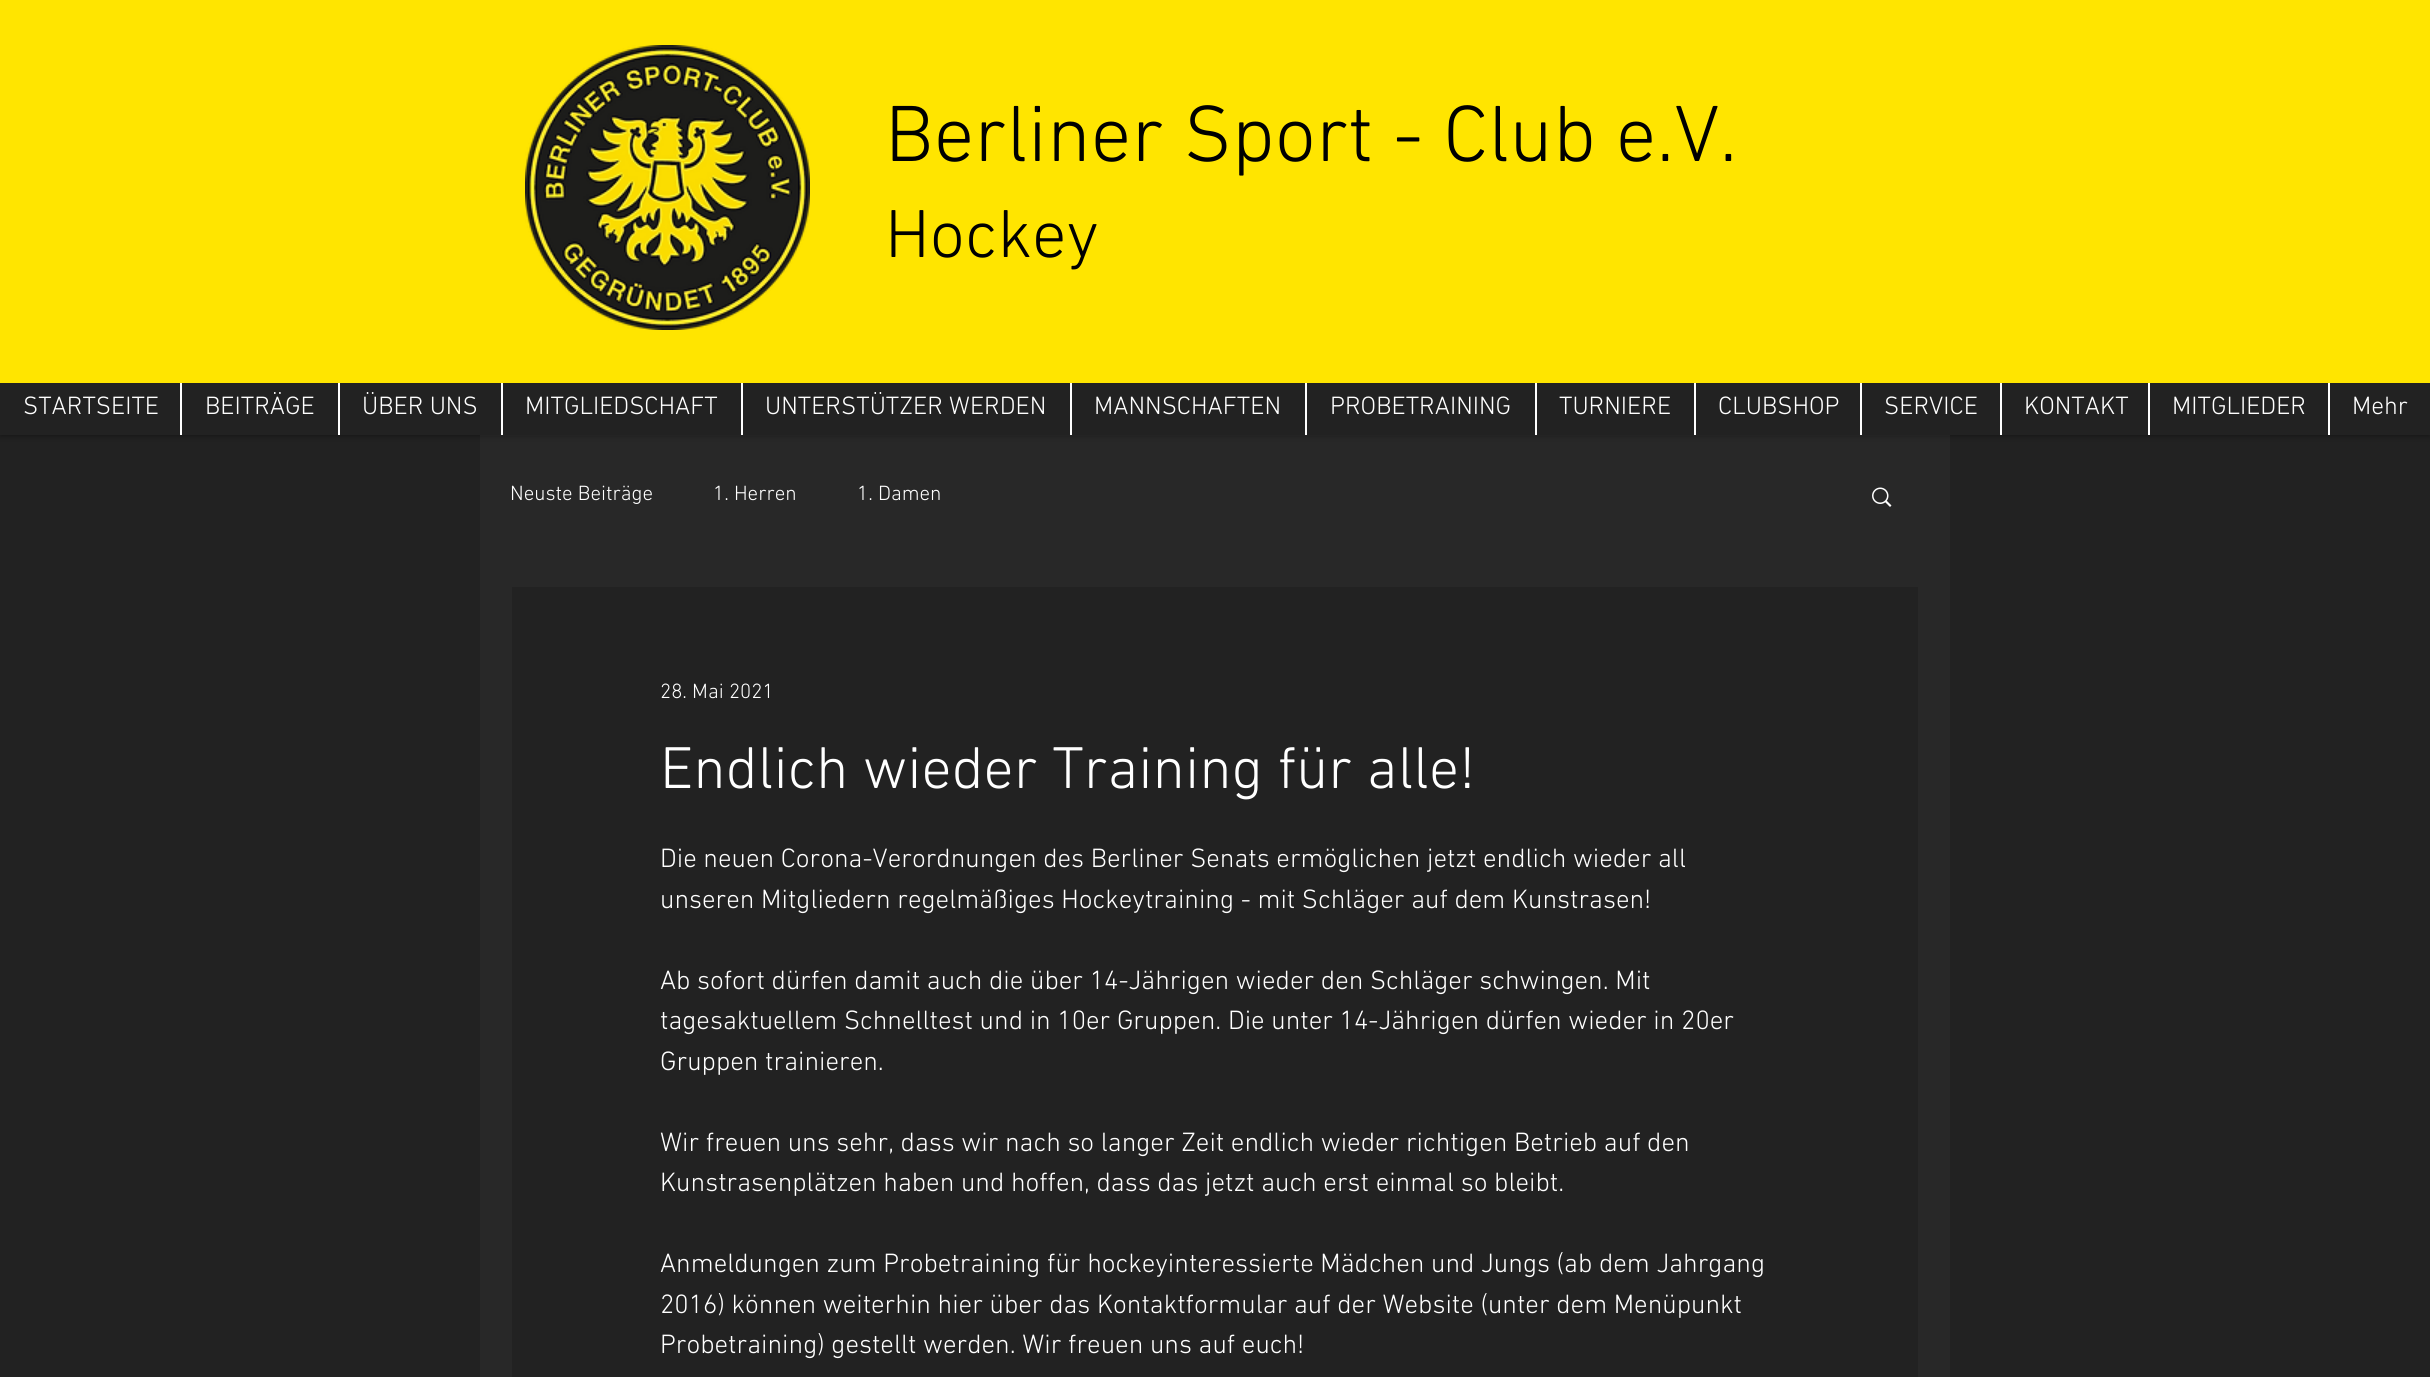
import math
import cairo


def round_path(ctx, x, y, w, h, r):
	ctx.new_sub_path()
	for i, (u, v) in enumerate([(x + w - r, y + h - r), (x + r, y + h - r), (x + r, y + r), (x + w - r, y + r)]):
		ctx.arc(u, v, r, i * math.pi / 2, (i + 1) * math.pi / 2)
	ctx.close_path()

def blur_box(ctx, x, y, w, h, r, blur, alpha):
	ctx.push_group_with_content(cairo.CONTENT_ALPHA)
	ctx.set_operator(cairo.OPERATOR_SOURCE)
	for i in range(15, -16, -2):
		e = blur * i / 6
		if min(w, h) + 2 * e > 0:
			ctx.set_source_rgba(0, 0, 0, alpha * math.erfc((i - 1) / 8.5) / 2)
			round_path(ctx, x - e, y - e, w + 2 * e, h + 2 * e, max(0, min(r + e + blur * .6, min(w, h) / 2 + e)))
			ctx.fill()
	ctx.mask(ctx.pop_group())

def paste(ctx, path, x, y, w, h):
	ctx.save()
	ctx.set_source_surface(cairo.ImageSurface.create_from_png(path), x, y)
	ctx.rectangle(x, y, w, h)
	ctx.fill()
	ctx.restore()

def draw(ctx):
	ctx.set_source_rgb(0.133, 0.133, 0.133)
	ctx.paint()
	ctx.set_source_rgb(0, 0, 0)
	blur_box(ctx, 0, 0, 2430, 435, 0, 4, 0.5)
	ctx.set_source_rgb(1, 0.898, 0)
	ctx.rectangle(0, 0, 2430, 383)
	ctx.fill()
	paste(ctx, 'media/1.png', 525, 45, 285, 285)
	ctx.select_font_face('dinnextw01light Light')
	ctx.set_font_size(81)
	ctx.set_source_rgb(0, 0, 0)
	ctx.move_to(885, 161)
	ctx.show_text('Berliner Sport - Club e.V.')
	ctx.set_font_size(69)
	ctx.move_to(885, 257)
	ctx.show_text('Hockey')
	ctx.set_source_rgb(0.133, 0.133, 0.133)
	ctx.rectangle(0, 383, 2430, 52)
	ctx.fill()
	ctx.set_font_size(25.5)
	ctx.set_source_rgb(1, 1, 1)
	ctx.move_to(23, 414)
	ctx.show_text('STARTSEITE')
	ctx.rectangle(180, 383, 2, 52)
	ctx.fill()
	ctx.move_to(205, 414)
	ctx.show_text('BEITRÄGE')
	ctx.rectangle(338, 383, 2, 52)
	ctx.fill()
	ctx.move_to(362, 414)
	ctx.show_text('ÜBER UNS')
	ctx.rectangle(501, 383, 2, 52)
	ctx.fill()
	ctx.move_to(525, 414)
	ctx.show_text('MITGLIEDSCHAFT')
	ctx.rectangle(741, 383, 2, 52)
	ctx.fill()
	ctx.move_to(765, 414)
	ctx.show_text('UNTERSTÜTZER WERDEN')
	ctx.rectangle(1070, 383, 2, 52)
	ctx.fill()
	ctx.move_to(1094, 414)
	ctx.show_text('MANNSCHAFTEN')
	ctx.rectangle(1305, 383, 2, 52)
	ctx.fill()
	ctx.move_to(1330, 414)
	ctx.show_text('PROBETRAINING')
	ctx.rectangle(1535, 383, 2, 52)
	ctx.fill()
	ctx.move_to(1559, 414)
	ctx.show_text('TURNIERE')
	ctx.rectangle(1694, 383, 2, 52)
	ctx.fill()
	ctx.move_to(1718, 414)
	ctx.show_text('CLUBSHOP')
	ctx.rectangle(1860, 383, 2, 52)
	ctx.fill()
	ctx.move_to(1884, 414)
	ctx.show_text('SERVICE')
	ctx.rectangle(2000, 383, 2, 52)
	ctx.fill()
	ctx.move_to(2024, 414)
	ctx.show_text('KONTAKT')
	ctx.rectangle(2148, 383, 2, 52)
	ctx.fill()
	ctx.move_to(2172, 414)
	ctx.show_text('MITGLIEDER')
	ctx.rectangle(2328, 383, 2, 52)
	ctx.fill()
	ctx.move_to(2352, 414)
	ctx.show_text('Mehr')
	ctx.set_source_rgba(0.133, 0.133, 0.133, 0.36)
	ctx.rectangle(480, 435, 1470, 1)
	ctx.fill()
	ctx.set_source_rgba(0.267, 0.267, 0.267, 0.2)
	ctx.rectangle(480, 435, 1470, 942)
	ctx.fill()
	ctx.set_font_size(21)
	ctx.set_source_rgb(1, 1, 1)
	for x, y, s in [
		(510, 500, 'Neuste Beiträge'),
		(713, 500, '1. Herren'),
		(857, 500, '1. Damen'),
	]:
		ctx.move_to(x, y)
		ctx.show_text(s)
	paste(ctx, 'media/2.png', 1872, 487, 20, 20)
	ctx.set_source_rgb(0.133, 0.133, 0.133)
	ctx.rectangle(512, 587, 1406, 790)
	ctx.fill()
	ctx.set_source_rgb(1, 1, 1)
	ctx.move_to(660, 698)
	ctx.show_text('28. Mai 2021')
	ctx.set_font_size(60)
	ctx.move_to(660, 788)
	ctx.show_text('Endlich wieder Training für alle!')
	ctx.set_font_size(27)
	for x, y, s in [
		(660, 867, 'Die neuen Corona-Verordnungen des Berliner Senats ermöglichen jetzt endlich wieder all'),
		(660, 908, 'unseren Mitgliedern regelmäßiges Hockeytraining - mit Schläger auf dem Kunstrasen!'),
		(660, 989, 'Ab sofort dürfen damit auch die über 14-Jährigen wieder den Schläger schwingen. Mit'),
		(660, 1029, 'tagesaktuellem Schnelltest und in 10er Gruppen. Die unter 14-Jährigen dürfen wieder in 20er'),
		(660, 1070, 'Gruppen trainieren.'),
		(660, 1151, 'Wir freuen uns sehr, dass wir nach so langer Zeit endlich wieder richtigen Betrieb auf den'),
		(660, 1191, 'Kunstrasenplätzen haben und hoffen, dass das jetzt auch erst einmal so bleibt.'),
		(660, 1272, 'Anmeldungen zum Probetraining für hockeyinteressierte Mädchen und Jungs (ab dem Jahrgang'),
		(660, 1313, '2016) können weiterhin hier über das Kontaktformular auf der Website (unter dem Menüpunkt'),
		(660, 1353, 'Probetraining) gestellt werden. Wir freuen uns auf euch!'),
	]:
		ctx.move_to(x, y)
		ctx.show_text(s)


surface = cairo.ImageSurface(cairo.FORMAT_RGB24, 2430, 1377)
ctx = cairo.Context(surface)
options = cairo.FontOptions()
options.set_hint_metrics(cairo.HINT_METRICS_OFF)
options.set_hint_style(cairo.HINT_STYLE_NONE)
ctx.set_font_options(options)
ctx.set_miter_limit(4)
draw(ctx)
surface.write_to_png('image.png')
